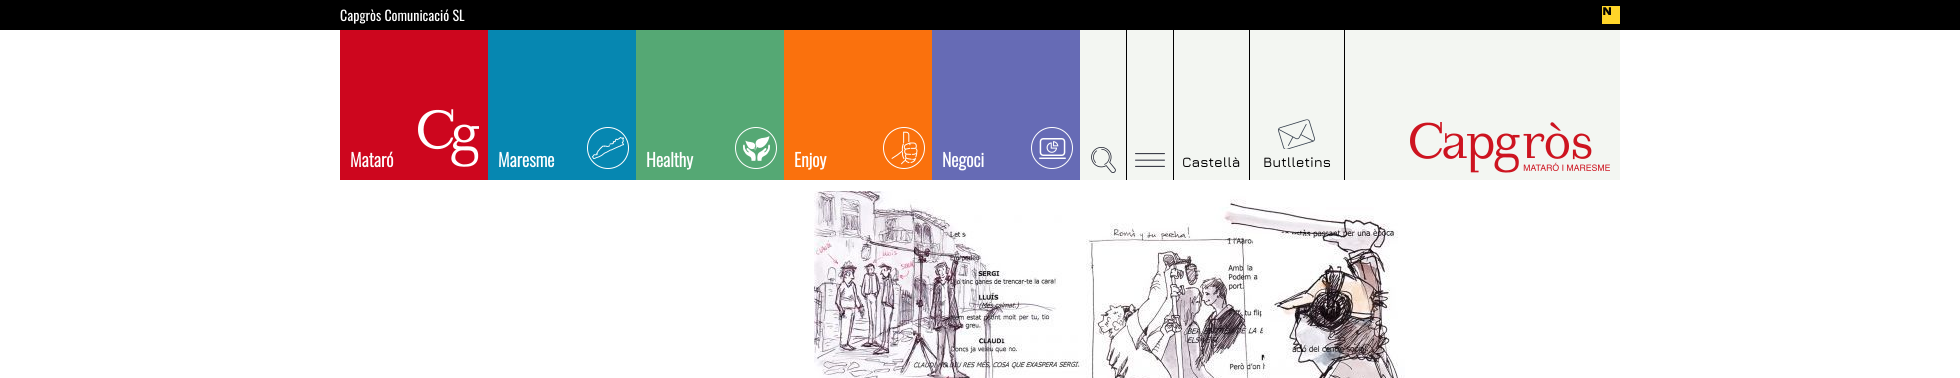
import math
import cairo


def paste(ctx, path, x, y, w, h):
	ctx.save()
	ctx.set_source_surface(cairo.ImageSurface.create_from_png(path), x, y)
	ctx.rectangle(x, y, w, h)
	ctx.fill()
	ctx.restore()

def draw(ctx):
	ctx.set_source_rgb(1, 1, 1)
	ctx.paint()
	ctx.set_source_rgb(0, 0, 0)
	ctx.rectangle(0, 0, 1960, 30)
	ctx.fill()
	ctx.select_font_face('Oswald')
	ctx.set_font_size(14)
	ctx.set_source_rgb(1, 1, 1)
	ctx.move_to(340, 21)
	ctx.show_text('Capgròs Comunicació SL')
	paste(ctx, 'media/1.png', 1602, 6, 18, 18)
	ctx.set_source_rgb(0.953, 0.961, 0.949)
	ctx.rectangle(1080, 30, 540, 150)
	ctx.fill()
	ctx.set_source_rgb(0.804, 0.027, 0.118)
	ctx.rectangle(340, 30, 148, 150)
	ctx.fill()
	ctx.select_font_face('Oswald', cairo.FONT_SLANT_NORMAL, cairo.FONT_WEIGHT_BOLD)
	ctx.set_font_size(18)
	ctx.set_source_rgb(1, 1, 1)
	ctx.move_to(350, 167)
	ctx.show_text('Mataró')
	paste(ctx, 'media/2.png', 418, 109, 61, 58)
	ctx.set_source_rgb(0.024, 0.529, 0.694)
	ctx.rectangle(488, 30, 148, 150)
	ctx.fill()
	ctx.set_source_rgb(1, 1, 1)
	ctx.move_to(498, 167)
	ctx.show_text('Maresme')
	paste(ctx, 'media/3.png', 592, 137, 32, 22)
	ctx.arc(608, 148, 20.5, 0, 2 * math.pi)
	ctx.set_line_width(1)
	ctx.stroke()
	ctx.set_source_rgb(0.333, 0.659, 0.455)
	ctx.rectangle(636, 30, 148, 150)
	ctx.fill()
	ctx.set_source_rgb(1, 1, 1)
	ctx.move_to(646, 167)
	ctx.show_text('Healthy')
	paste(ctx, 'media/4.png', 743, 136, 27, 25)
	ctx.arc(756, 148, 20.5, 0, 2 * math.pi)
	ctx.stroke()
	ctx.set_source_rgb(0.98, 0.443, 0.051)
	ctx.rectangle(784, 30, 148, 150)
	ctx.fill()
	ctx.set_source_rgb(1, 1, 1)
	ctx.move_to(794, 167)
	ctx.show_text('Enjoy')
	paste(ctx, 'media/5.png', 891, 131, 27, 34)
	ctx.arc(904, 148, 20.5, 0, 2 * math.pi)
	ctx.stroke()
	ctx.set_source_rgb(0.4, 0.42, 0.71)
	ctx.rectangle(932, 30, 148, 150)
	ctx.fill()
	ctx.set_source_rgb(1, 1, 1)
	ctx.move_to(942, 167)
	ctx.show_text('Negoci')
	paste(ctx, 'media/6.png', 1039, 138, 27, 21)
	ctx.arc(1052, 148, 20.5, 0, 2 * math.pi)
	ctx.stroke()
	ctx.set_source_rgb(0, 0, 0)
	ctx.rectangle(1126, 30, 1, 150)
	ctx.fill()
	paste(ctx, 'media/7.png', 1091, 147, 25, 26)
	ctx.rectangle(1173, 30, 1, 150)
	ctx.fill()
	paste(ctx, 'media/8.png', 1135, 153, 30, 14)
	ctx.rectangle(1249, 30, 1, 150)
	ctx.fill()
	ctx.select_font_face('Jura SemiBold')
	ctx.set_font_size(14)
	ctx.move_to(1182, 167)
	ctx.show_text('Castellà')
	ctx.rectangle(1344, 30, 1, 150)
	ctx.fill()
	paste(ctx, 'media/9.png', 1278, 119, 37, 30)
	ctx.move_to(1263, 167)
	ctx.show_text('Butlletins')
	paste(ctx, 'media/10.png', 1410, 122, 200, 51)
	paste(ctx, 'media/11.png', 814, 191, 591, 187)


surface = cairo.ImageSurface(cairo.FORMAT_RGB24, 1960, 378)
ctx = cairo.Context(surface)
options = cairo.FontOptions()
options.set_hint_metrics(cairo.HINT_METRICS_OFF)
options.set_hint_style(cairo.HINT_STYLE_NONE)
ctx.set_font_options(options)
ctx.set_miter_limit(4)
draw(ctx)
surface.write_to_png('image.png')
